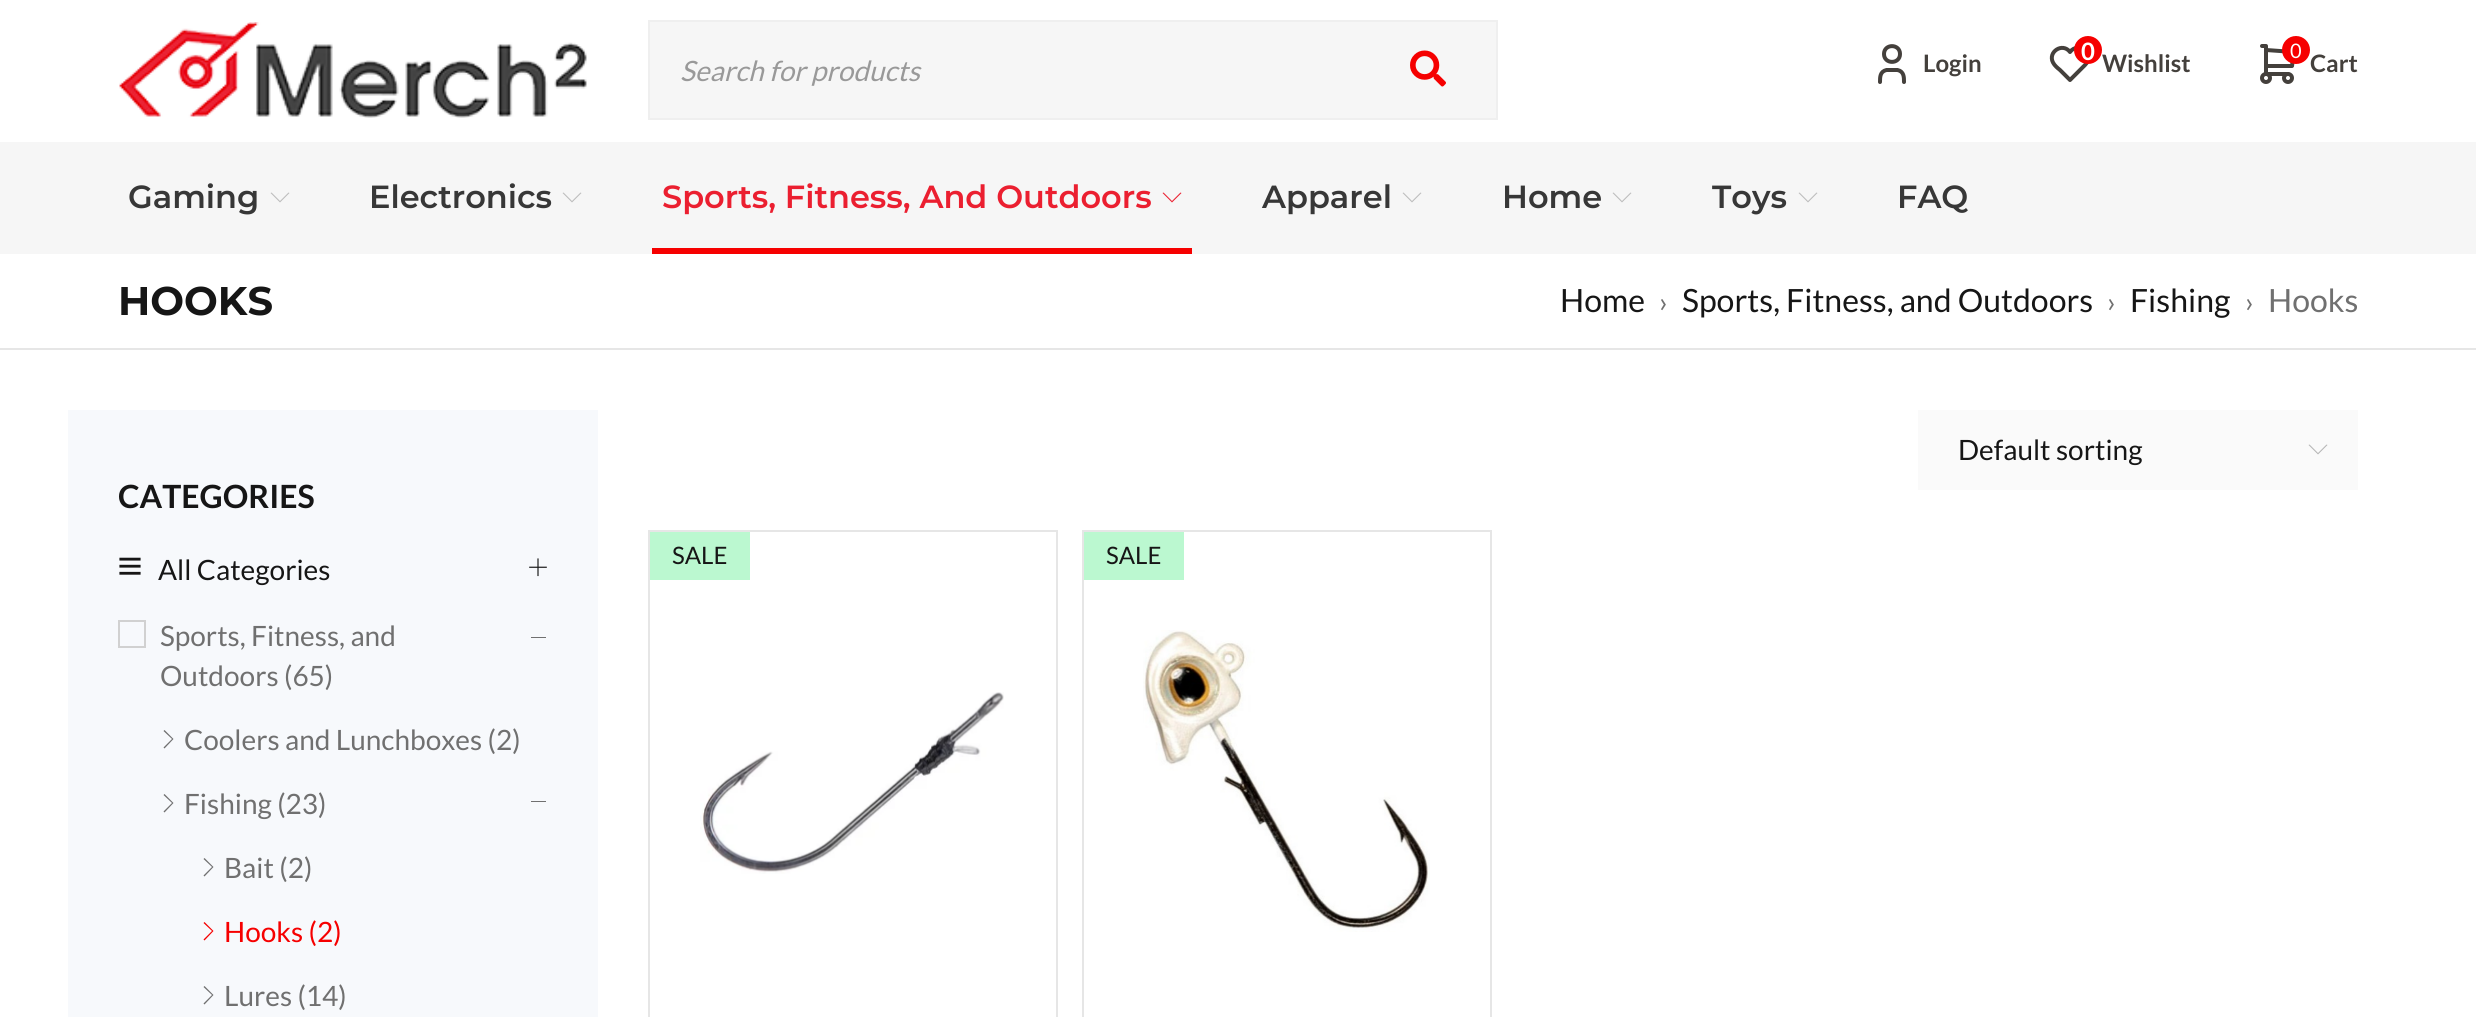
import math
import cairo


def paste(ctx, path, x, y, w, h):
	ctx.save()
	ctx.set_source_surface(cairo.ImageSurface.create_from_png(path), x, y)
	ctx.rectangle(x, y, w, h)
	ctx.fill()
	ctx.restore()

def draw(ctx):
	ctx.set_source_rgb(1, 1, 1)
	ctx.paint()
	paste(ctx, 'media/1.png', 119, 22, 468, 96)
	ctx.set_source_rgb(0.961, 0.961, 0.961)
	ctx.rectangle(649, 21, 848, 98)
	ctx.fill_preserve()
	ctx.set_source_rgb(0.937, 0.937, 0.937)
	ctx.stroke()
	ctx.select_font_face('Lato', cairo.FONT_SLANT_ITALIC)
	ctx.set_font_size(28)
	ctx.set_source_rgb(0.6, 0.6, 0.6)
	ctx.move_to(680, 81)
	ctx.show_text('Search for products')
	paste(ctx, 'media/2.png', 1410, 50, 36, 37)
	ctx.new_path()
	ctx.move_to(1884, 54)
	ctx.curve_to(1884, 64.5, 1900, 64.5, 1900, 54)
	ctx.curve_to(1900, 43.5, 1884, 43.5, 1884, 54)
	ctx.close_path()
	ctx.move_to(1880, 82)
	ctx.curve_to(1880, 77, 1880, 71.5, 1886.5, 70)
	ctx.line_to(1897.5, 70)
	ctx.curve_to(1904, 71.5, 1904, 77, 1904, 82)
	ctx.set_source_rgb(0.267, 0.251, 0.235)
	ctx.set_line_width(4)
	ctx.set_line_cap(cairo.LINE_CAP_ROUND)
	ctx.set_line_join(cairo.LINE_JOIN_ROUND)
	ctx.stroke()
	ctx.select_font_face('Lato', cairo.FONT_SLANT_NORMAL, cairo.FONT_WEIGHT_BOLD)
	ctx.set_font_size(24)
	ctx.move_to(1923, 72)
	ctx.show_text('Login')
	ctx.new_path()
	ctx.move_to(2085, 65)
	ctx.line_to(2070, 80)
	ctx.line_to(2060, 70)
	ctx.curve_to(2057.5, 68, 2054.5, 65.5, 2053, 62.5)
	ctx.curve_to(2047.5, 52, 2062.5, 42, 2070, 52)
	ctx.curve_to(2078.5, 40.5, 2095, 55.5, 2085, 65)
	ctx.stroke()
	ctx.move_to(2102, 72)
	ctx.show_text('Wishlist')
	ctx.set_source_rgb(0.961, 0, 0)
	ctx.new_path()
	ctx.arc(2088, 50, 14, 0, 2 * math.pi)
	ctx.fill()
	ctx.set_source_rgb(1, 1, 1)
	ctx.move_to(2081, 60)
	ctx.show_text('0')
	paste(ctx, 'media/3.png', 2260, 44, 35, 40)
	ctx.set_source_rgb(0.961, 0, 0)
	ctx.arc(2296, 50, 14, 0, 2 * math.pi)
	ctx.fill()
	ctx.select_font_face('Lato')
	ctx.set_font_size(20)
	ctx.set_source_rgb(1, 1, 1)
	ctx.move_to(2290, 58)
	ctx.show_text('0')
	ctx.select_font_face('Lato', cairo.FONT_SLANT_NORMAL, cairo.FONT_WEIGHT_BOLD)
	ctx.set_font_size(24)
	ctx.set_source_rgb(0.267, 0.251, 0.235)
	ctx.move_to(2310, 72)
	ctx.show_text('Cart')
	ctx.set_source_rgb(0.961, 0.961, 0.961)
	ctx.rectangle(0, 142, 2476, 112)
	ctx.fill()
	ctx.select_font_face('Montserrat SemiBold')
	ctx.set_font_size(32)
	ctx.set_source_rgb(0.216, 0.216, 0.216)
	ctx.move_to(128, 208)
	ctx.show_text('Gaming')
	ctx.set_source_rgb(0.737, 0.737, 0.737)
	ctx.new_path()
	ctx.move_to(289.5, 193)
	ctx.line_to(280, 202.5)
	ctx.line_to(270.5, 193)
	ctx.line_to(271.5, 192.5)
	ctx.line_to(280, 201)
	ctx.line_to(288.5, 192.5)
	ctx.close_path()
	ctx.fill()
	ctx.set_source_rgb(0.216, 0.216, 0.216)
	ctx.move_to(369, 208)
	ctx.show_text('Electronics')
	ctx.set_source_rgb(0.737, 0.737, 0.737)
	ctx.new_path()
	ctx.move_to(581.5, 193)
	ctx.line_to(572, 202.5)
	ctx.line_to(562.5, 193)
	ctx.line_to(563.5, 192.5)
	ctx.line_to(572, 201)
	ctx.line_to(580.5, 192.5)
	ctx.close_path()
	ctx.fill()
	ctx.set_source_rgb(0.961, 0, 0)
	ctx.rectangle(652, 248, 540, 6)
	ctx.fill()
	ctx.set_source_rgb(0.918, 0.122, 0.188)
	ctx.move_to(662, 208)
	ctx.show_text('Sports, Fitness, And Outdoors')
	ctx.new_path()
	ctx.move_to(1181.5, 193)
	ctx.line_to(1172, 202.5)
	ctx.line_to(1162.5, 193)
	ctx.line_to(1163.5, 192.5)
	ctx.line_to(1172, 201)
	ctx.line_to(1180.5, 192.5)
	ctx.close_path()
	ctx.fill()
	ctx.set_source_rgb(0.216, 0.216, 0.216)
	ctx.move_to(1262, 208)
	ctx.show_text('Apparel')
	ctx.set_source_rgb(0.737, 0.737, 0.737)
	ctx.new_path()
	ctx.move_to(1421.5, 193)
	ctx.line_to(1412, 202.5)
	ctx.line_to(1402.5, 193)
	ctx.line_to(1403.5, 192.5)
	ctx.line_to(1412, 201)
	ctx.line_to(1420.5, 192.5)
	ctx.close_path()
	ctx.fill()
	ctx.set_source_rgb(0.216, 0.216, 0.216)
	ctx.move_to(1502, 208)
	ctx.show_text('Home')
	ctx.set_source_rgb(0.737, 0.737, 0.737)
	ctx.new_path()
	ctx.move_to(1631.5, 193)
	ctx.line_to(1622, 202.5)
	ctx.line_to(1612.5, 193)
	ctx.line_to(1613.5, 192.5)
	ctx.line_to(1622, 201)
	ctx.line_to(1630.5, 192.5)
	ctx.close_path()
	ctx.fill()
	ctx.set_source_rgb(0.216, 0.216, 0.216)
	ctx.move_to(1712, 208)
	ctx.show_text('Toys')
	ctx.set_source_rgb(0.737, 0.737, 0.737)
	ctx.new_path()
	ctx.move_to(1817.5, 193)
	ctx.line_to(1808, 202.5)
	ctx.line_to(1798.5, 193)
	ctx.line_to(1799.5, 192.5)
	ctx.line_to(1808, 201)
	ctx.line_to(1816.5, 192.5)
	ctx.close_path()
	ctx.fill()
	ctx.set_source_rgb(0.216, 0.216, 0.216)
	ctx.move_to(1897, 208)
	ctx.show_text('FAQ')
	ctx.set_source_rgb(0.902, 0.902, 0.902)
	ctx.rectangle(0, 348, 2476, 2)
	ctx.fill()
	ctx.select_font_face('Montserrat', cairo.FONT_SLANT_NORMAL, cairo.FONT_WEIGHT_BOLD)
	ctx.set_font_size(40)
	ctx.set_source_rgb(0.086, 0.086, 0.086)
	ctx.move_to(118, 315)
	ctx.show_text('HOOKS')
	ctx.select_font_face('Lato')
	ctx.set_font_size(32)
	ctx.move_to(1560, 312)
	ctx.show_text('Home')
	ctx.set_font_size(28)
	ctx.set_source_rgb(0.439, 0.439, 0.439)
	ctx.move_to(1659, 312)
	ctx.show_text('›')
	ctx.set_font_size(32)
	ctx.set_source_rgb(0.086, 0.086, 0.086)
	ctx.move_to(1682, 312)
	ctx.show_text('Sports, Fitness, and Outdoors')
	ctx.set_font_size(28)
	ctx.set_source_rgb(0.439, 0.439, 0.439)
	ctx.move_to(2107, 312)
	ctx.show_text('›')
	ctx.set_font_size(32)
	ctx.set_source_rgb(0.086, 0.086, 0.086)
	ctx.move_to(2130, 312)
	ctx.show_text('Fishing')
	ctx.set_font_size(28)
	ctx.set_source_rgb(0.439, 0.439, 0.439)
	ctx.move_to(2245, 312)
	ctx.show_text('›')
	ctx.set_font_size(32)
	ctx.move_to(2268, 312)
	ctx.show_text('Hooks')
	ctx.set_source_rgb(0.98, 0.98, 0.98)
	ctx.rectangle(1918, 410, 440, 80)
	ctx.fill()
	ctx.set_font_size(28)
	ctx.set_source_rgb(0.086, 0.086, 0.086)
	ctx.move_to(1958, 460)
	ctx.show_text('Default sorting')
	ctx.set_source_rgb(0.714, 0.714, 0.714)
	ctx.new_path()
	ctx.move_to(2327.5, 445)
	ctx.line_to(2318, 454.5)
	ctx.line_to(2308.5, 445)
	ctx.line_to(2309.5, 444.5)
	ctx.line_to(2318, 453)
	ctx.line_to(2326.5, 444.5)
	ctx.close_path()
	ctx.fill()
	ctx.set_source_rgb(0.965, 0.976, 0.988)
	ctx.rectangle(68, 410, 530, 607)
	ctx.fill()
	ctx.select_font_face('Lato', cairo.FONT_SLANT_NORMAL, cairo.FONT_WEIGHT_BOLD)
	ctx.set_font_size(32)
	ctx.set_source_rgb(0.086, 0.086, 0.086)
	ctx.move_to(118, 508)
	ctx.show_text('CATEGORIES')
	paste(ctx, 'media/4.png', 119, 557, 22, 18)
	ctx.select_font_face('Lato')
	ctx.set_font_size(28)
	ctx.move_to(158, 580)
	ctx.show_text('All Categories')
	paste(ctx, 'media/5.png', 529, 558, 18, 19)
	ctx.rectangle(119, 621, 26, 26)
	ctx.set_source_rgb(0.82, 0.82, 0.82)
	ctx.set_line_width(2)
	ctx.set_line_cap(cairo.LINE_CAP_BUTT)
	ctx.set_line_join(cairo.LINE_JOIN_MITER)
	ctx.stroke()
	ctx.set_source_rgb(0.439, 0.439, 0.439)
	ctx.move_to(160, 646)
	ctx.show_text('Sports, Fitness, and')
	ctx.move_to(160, 686)
	ctx.show_text('Outdoors (65)')
	ctx.rectangle(531, 637, 15, 1)
	ctx.fill()
	ctx.new_path()
	ctx.move_to(173.5, 739)
	ctx.line_to(164.5, 748.5)
	ctx.line_to(163.5, 747.5)
	ctx.line_to(172, 739)
	ctx.line_to(163.5, 731)
	ctx.line_to(164.5, 730)
	ctx.close_path()
	ctx.fill()
	ctx.move_to(184, 750)
	ctx.show_text('Coolers and Lunchboxes (2)')
	ctx.new_path()
	ctx.move_to(173.5, 803)
	ctx.line_to(164.5, 812.5)
	ctx.line_to(163.5, 811.5)
	ctx.line_to(172, 803)
	ctx.line_to(163.5, 795)
	ctx.line_to(164.5, 794)
	ctx.close_path()
	ctx.fill()
	ctx.move_to(184, 814)
	ctx.show_text('Fishing (23)')
	ctx.rectangle(531, 801, 15, 1)
	ctx.fill()
	ctx.new_path()
	ctx.move_to(213.5, 867)
	ctx.line_to(204.5, 876.5)
	ctx.line_to(203.5, 875.5)
	ctx.line_to(212, 867)
	ctx.line_to(203.5, 859)
	ctx.line_to(204.5, 858)
	ctx.close_path()
	ctx.fill()
	ctx.move_to(224, 878)
	ctx.show_text('Bait (2)')
	ctx.set_source_rgb(0.961, 0, 0)
	ctx.new_path()
	ctx.move_to(213.5, 931)
	ctx.line_to(204.5, 940.5)
	ctx.line_to(203.5, 939.5)
	ctx.line_to(212, 931)
	ctx.line_to(203.5, 923)
	ctx.line_to(204.5, 922)
	ctx.close_path()
	ctx.fill()
	ctx.move_to(224, 942)
	ctx.show_text('Hooks (2)')
	ctx.set_source_rgb(0.439, 0.439, 0.439)
	ctx.new_path()
	ctx.move_to(213.5, 995)
	ctx.line_to(204.5, 1004.5)
	ctx.line_to(203.5, 1003.5)
	ctx.line_to(212, 995)
	ctx.line_to(203.5, 987)
	ctx.line_to(204.5, 986)
	ctx.close_path()
	ctx.fill()
	ctx.move_to(224, 1006)
	ctx.show_text('Lures (14)')
	ctx.rectangle(649, 531, 408, 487)
	ctx.set_source_rgb(0.902, 0.902, 0.902)
	ctx.stroke()
	ctx.set_source_rgb(0.733, 0.969, 0.816)
	ctx.rectangle(650, 532, 100, 48)
	ctx.fill()
	ctx.set_font_size(24)
	ctx.set_source_rgb(0.086, 0.086, 0.086)
	ctx.move_to(672, 564)
	ctx.show_text('SALE')
	paste(ctx, 'media/6.png', 700, 692, 304, 182)
	ctx.rectangle(1083, 531, 408, 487)
	ctx.set_source_rgb(0.902, 0.902, 0.902)
	ctx.stroke()
	ctx.set_source_rgb(0.733, 0.969, 0.816)
	ctx.rectangle(1084, 532, 100, 48)
	ctx.fill()
	ctx.set_source_rgb(0.086, 0.086, 0.086)
	ctx.move_to(1106, 564)
	ctx.show_text('SALE')
	paste(ctx, 'media/7.png', 1143, 630, 287, 302)


surface = cairo.ImageSurface(cairo.FORMAT_RGB24, 2476, 1017)
ctx = cairo.Context(surface)
options = cairo.FontOptions()
options.set_hint_metrics(cairo.HINT_METRICS_OFF)
options.set_hint_style(cairo.HINT_STYLE_NONE)
ctx.set_font_options(options)
ctx.set_miter_limit(4)
draw(ctx)
surface.write_to_png('image.png')
